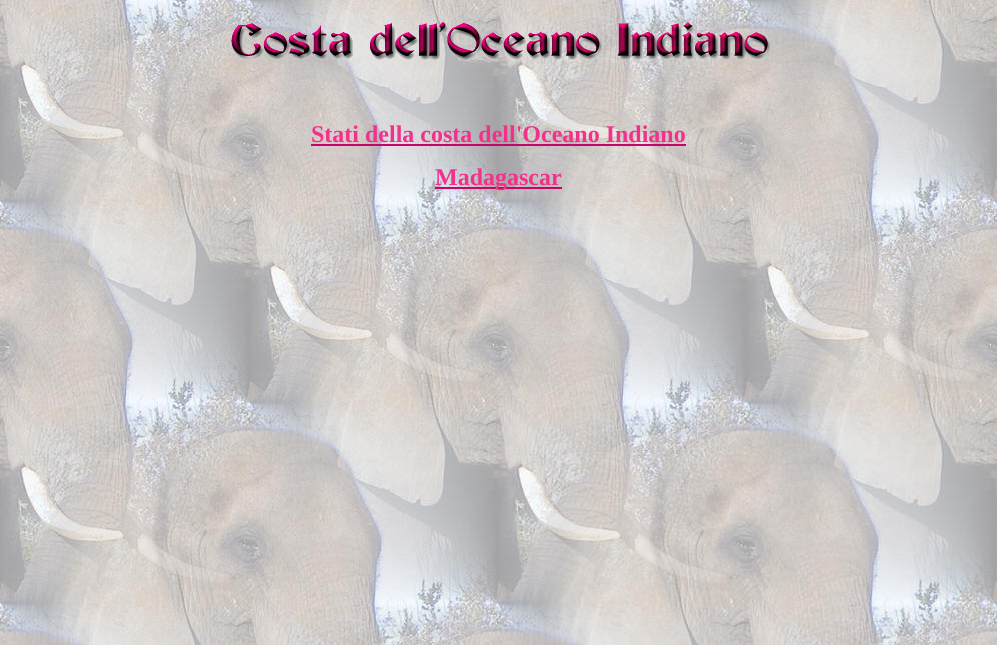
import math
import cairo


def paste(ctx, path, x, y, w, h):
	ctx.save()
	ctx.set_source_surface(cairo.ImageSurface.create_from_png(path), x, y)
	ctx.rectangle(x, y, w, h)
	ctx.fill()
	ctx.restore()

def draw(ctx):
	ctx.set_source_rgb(1, 1, 1)
	ctx.paint()
	paste(ctx, 'media/1.png', 0, 0, 997, 645)
	paste(ctx, 'media/2.png', 231, 22, 540, 38)
	ctx.select_font_face('Liberation Serif', cairo.FONT_SLANT_NORMAL, cairo.FONT_WEIGHT_BOLD)
	ctx.set_font_size(24)
	ctx.set_source_rgb(0.953, 0.192, 0.545)
	ctx.move_to(311, 142)
	ctx.show_text('Stati della costa dell\'Oceano Indiano')
	ctx.set_source_rgb(0.784, 0.016, 0.416)
	ctx.rectangle(311, 144, 375, 2)
	ctx.fill()
	ctx.rectangle(435, 187, 127, 2)
	ctx.fill()
	ctx.set_source_rgb(0.953, 0.192, 0.545)
	ctx.move_to(435, 185)
	ctx.show_text('Madagascar')


surface = cairo.ImageSurface(cairo.FORMAT_RGB24, 997, 645)
ctx = cairo.Context(surface)
options = cairo.FontOptions()
options.set_hint_metrics(cairo.HINT_METRICS_OFF)
options.set_hint_style(cairo.HINT_STYLE_NONE)
ctx.set_font_options(options)
ctx.set_miter_limit(4)
draw(ctx)
surface.write_to_png('image.png')
